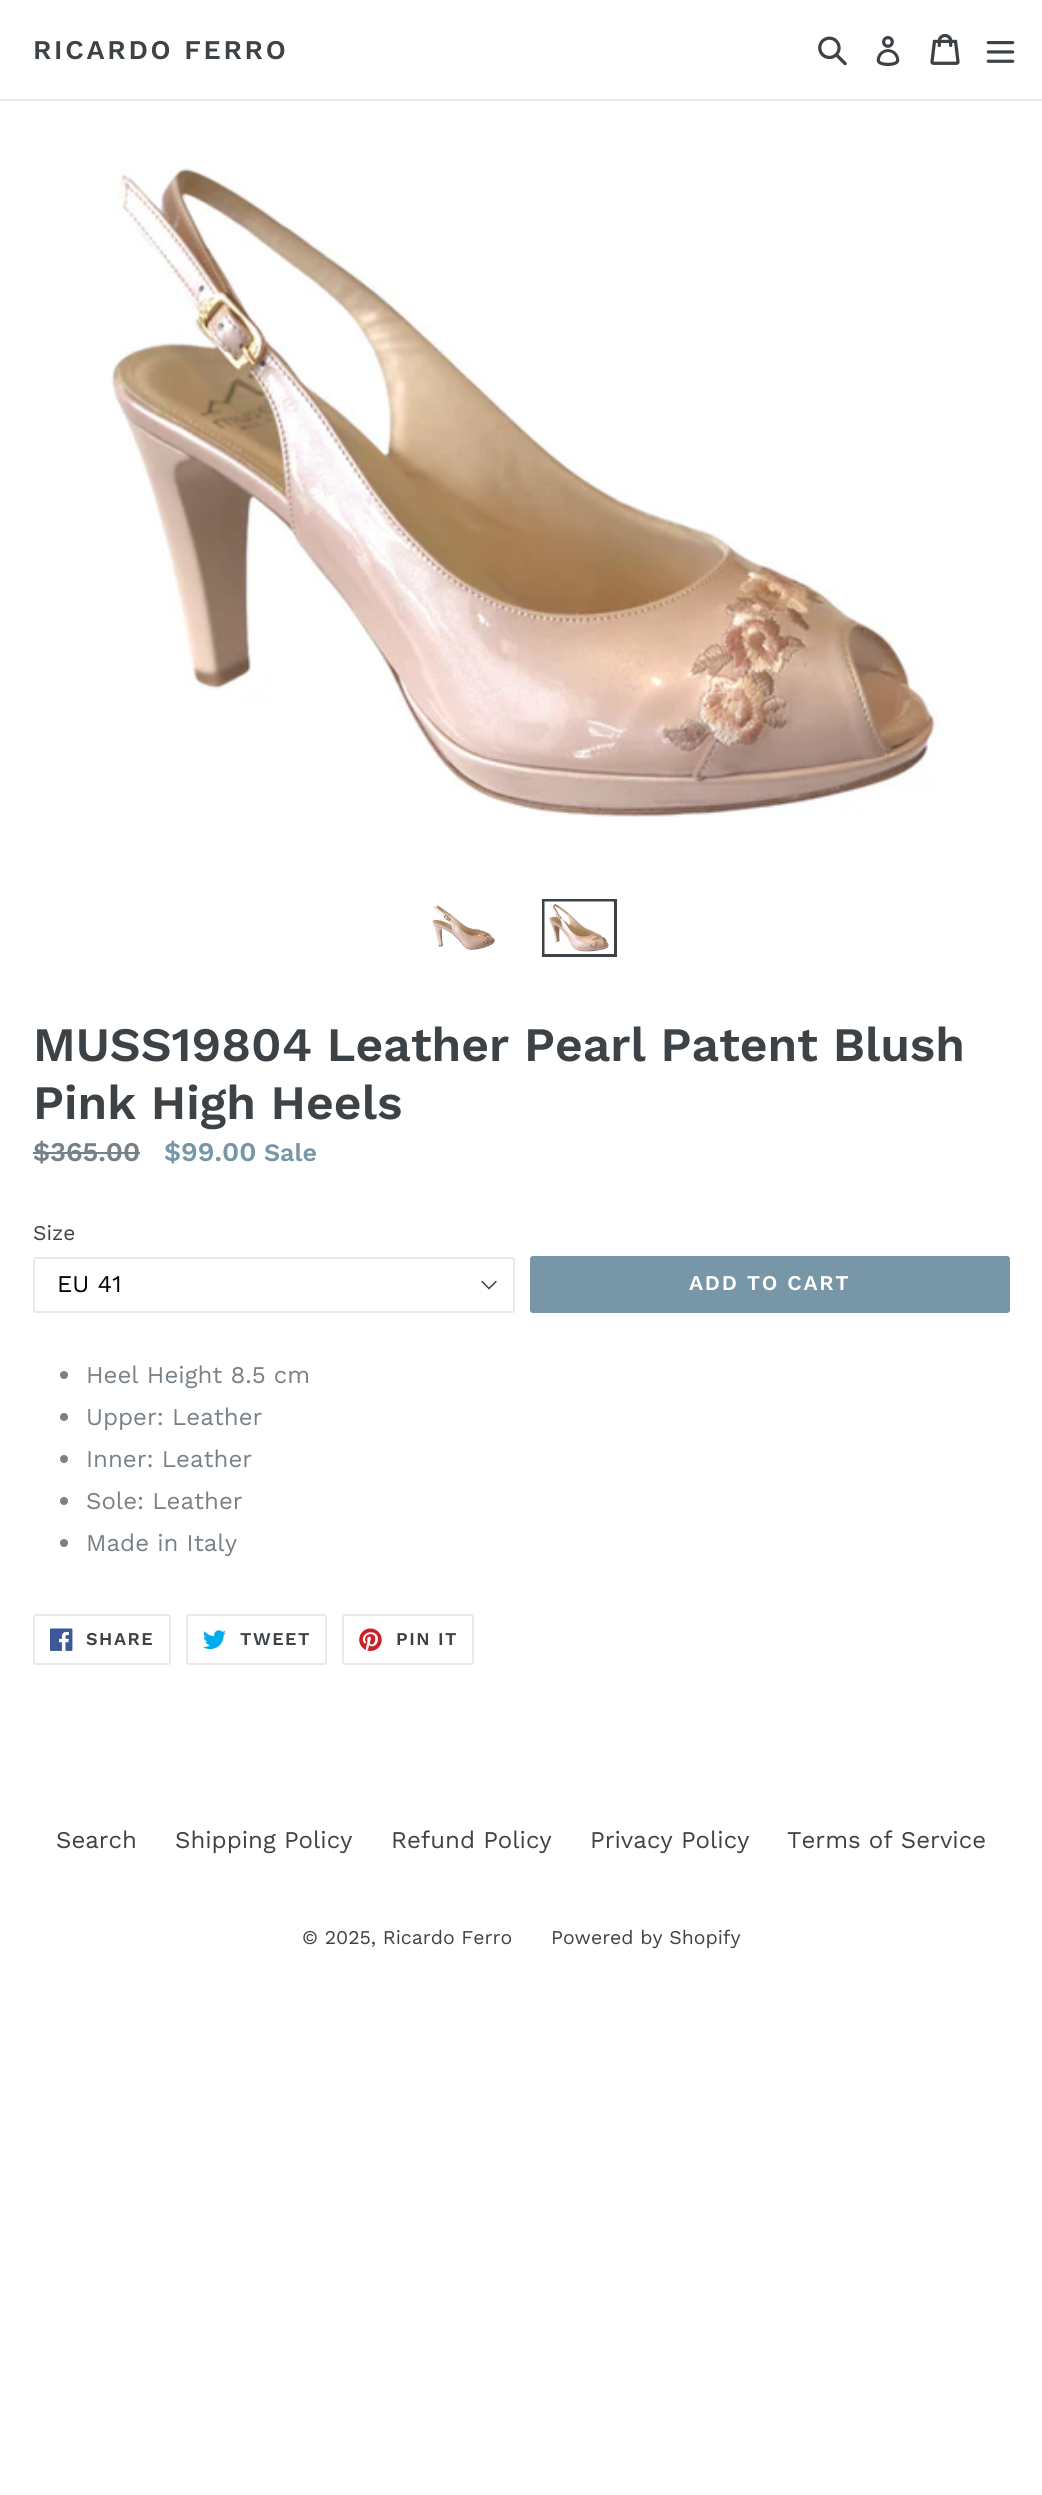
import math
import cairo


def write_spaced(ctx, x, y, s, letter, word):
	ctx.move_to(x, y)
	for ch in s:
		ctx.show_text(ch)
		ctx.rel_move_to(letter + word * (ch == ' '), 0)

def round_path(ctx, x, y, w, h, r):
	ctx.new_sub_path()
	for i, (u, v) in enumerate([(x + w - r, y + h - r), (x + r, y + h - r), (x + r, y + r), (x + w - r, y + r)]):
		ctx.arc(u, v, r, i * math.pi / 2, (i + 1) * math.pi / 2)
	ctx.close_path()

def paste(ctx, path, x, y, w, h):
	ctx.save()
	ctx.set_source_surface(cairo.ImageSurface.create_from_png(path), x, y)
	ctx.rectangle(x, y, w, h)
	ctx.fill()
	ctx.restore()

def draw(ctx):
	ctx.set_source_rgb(1, 1, 1)
	ctx.paint()
	ctx.set_source_rgb(0.91, 0.914, 0.922)
	ctx.rectangle(0, 99, 1042, 2)
	ctx.fill()
	ctx.select_font_face('Work Sans SemiBold')
	ctx.set_font_size(27)
	ctx.set_source_rgb(0.239, 0.259, 0.275)
	write_spaced(ctx, 33, 59, 'RICARDO FERRO', 2.75, 0)
	paste(ctx, 'media/1.png', 818, 36, 29, 30)
	paste(ctx, 'media/2.png', 876, 36, 24, 30)
	paste(ctx, 'media/3.png', 930, 33, 30, 32)
	paste(ctx, 'media/4.png', 986, 41, 29, 22)
	paste(ctx, 'media/5.png', 111, 168, 827, 649)
	paste(ctx, 'media/6.png', 432, 905, 63, 45)
	ctx.rectangle(543.5, 900.5, 72, 55)
	ctx.set_line_width(3)
	ctx.stroke()
	paste(ctx, 'media/7.png', 544, 901, 70, 53)
	ctx.set_font_size(48)
	ctx.move_to(33, 1061)
	ctx.show_text('MUSS19804 Leather Pearl Patent Blush')
	ctx.move_to(33, 1119)
	ctx.show_text('Pink High Heels')
	ctx.set_font_size(27)
	ctx.set_source_rgb(0.471, 0.506, 0.533)
	ctx.move_to(33, 1161)
	ctx.show_text('$365.00')
	ctx.rectangle(33, 1152, 107, 2)
	ctx.fill()
	ctx.set_source_rgb(0.467, 0.588, 0.659)
	ctx.move_to(164, 1161)
	ctx.show_text('$99.00')
	ctx.set_font_size(25)
	ctx.move_to(264, 1161)
	ctx.show_text('Sale')
	ctx.select_font_face('Work Sans')
	ctx.set_font_size(21)
	ctx.set_source_rgb(0.239, 0.259, 0.275)
	ctx.move_to(33, 1240)
	ctx.show_text('Size')
	paste(ctx, 'media/8.png', 481, 1280, 16, 10)
	round_path(ctx, 34, 1258, 480, 54, 2)
	ctx.set_source_rgb(0.91, 0.914, 0.922)
	ctx.set_line_width(2)
	ctx.stroke()
	ctx.set_font_size(24)
	ctx.set_source_rgb(0, 0, 0)
	ctx.move_to(57, 1292)
	ctx.show_text('EU 41')
	ctx.set_source_rgb(0.467, 0.588, 0.659)
	round_path(ctx, 530, 1256, 480, 57, 3)
	ctx.fill()
	ctx.select_font_face('Work Sans SemiBold')
	ctx.set_font_size(21)
	ctx.set_source_rgb(1, 1, 1)
	write_spaced(ctx, 689, 1290, 'ADD TO CART', 1.75, 0)
	ctx.set_source_rgb(0.471, 0.506, 0.533)
	ctx.new_path()
	ctx.arc(64, 1375, 4, 0, 2 * math.pi)
	ctx.fill()
	ctx.select_font_face('Work Sans')
	ctx.set_font_size(24)
	ctx.move_to(86, 1383)
	ctx.show_text('Heel Height 8.5 cm')
	ctx.new_path()
	ctx.arc(64, 1417, 4, 0, 2 * math.pi)
	ctx.fill()
	ctx.move_to(86, 1425)
	ctx.show_text('Upper: Leather')
	ctx.new_path()
	ctx.arc(64, 1459, 4, 0, 2 * math.pi)
	ctx.fill()
	ctx.move_to(86, 1467)
	ctx.show_text('Inner: Leather')
	ctx.new_path()
	ctx.arc(64, 1501, 4, 0, 2 * math.pi)
	ctx.fill()
	ctx.move_to(86, 1509)
	ctx.show_text('Sole: Leather')
	ctx.new_path()
	ctx.arc(64, 1543, 4, 0, 2 * math.pi)
	ctx.fill()
	ctx.move_to(86, 1551)
	ctx.show_text('Made in Italy')
	round_path(ctx, 34, 1615, 136, 49, 2)
	ctx.set_source_rgb(0.91, 0.914, 0.922)
	ctx.stroke()
	paste(ctx, 'media/9.png', 50, 1628, 23, 23)
	ctx.select_font_face('Work Sans SemiBold')
	ctx.set_font_size(18)
	ctx.set_source_rgb(0.239, 0.259, 0.275)
	write_spaced(ctx, 86, 1645, 'SHARE', 1.5, 0)
	round_path(ctx, 187, 1615, 139, 49, 2)
	ctx.set_source_rgb(0.91, 0.914, 0.922)
	ctx.stroke()
	paste(ctx, 'media/10.png', 203, 1630, 23, 20)
	ctx.set_source_rgb(0.239, 0.259, 0.275)
	write_spaced(ctx, 240, 1645, 'TWEET', 1.5, 0)
	round_path(ctx, 343, 1615, 130, 49, 2)
	ctx.set_source_rgb(0.91, 0.914, 0.922)
	ctx.stroke()
	paste(ctx, 'media/11.png', 359, 1628, 23, 23)
	ctx.set_source_rgb(0.239, 0.259, 0.275)
	write_spaced(ctx, 396, 1645, 'PIN IT', 1.5, 0)
	ctx.select_font_face('Work Sans')
	ctx.set_font_size(24)
	for x, y, s in [
		(56, 1848, 'Search'),
		(175, 1848, 'Shipping Policy'),
		(391, 1848, 'Refund Policy'),
		(590, 1848, 'Privacy Policy'),
		(787, 1848, 'Terms of Service'),
	]:
		ctx.move_to(x, y)
		ctx.show_text(s)
	ctx.set_font_size(19.5)
	ctx.move_to(302, 1944)
	ctx.show_text('© 2025, Ricardo Ferro')
	ctx.move_to(551, 1944)
	ctx.show_text('Powered by Shopify')


surface = cairo.ImageSurface(cairo.FORMAT_RGB24, 1042, 2495)
ctx = cairo.Context(surface)
options = cairo.FontOptions()
options.set_hint_metrics(cairo.HINT_METRICS_OFF)
options.set_hint_style(cairo.HINT_STYLE_NONE)
ctx.set_font_options(options)
ctx.set_miter_limit(4)
draw(ctx)
surface.write_to_png('image.png')
